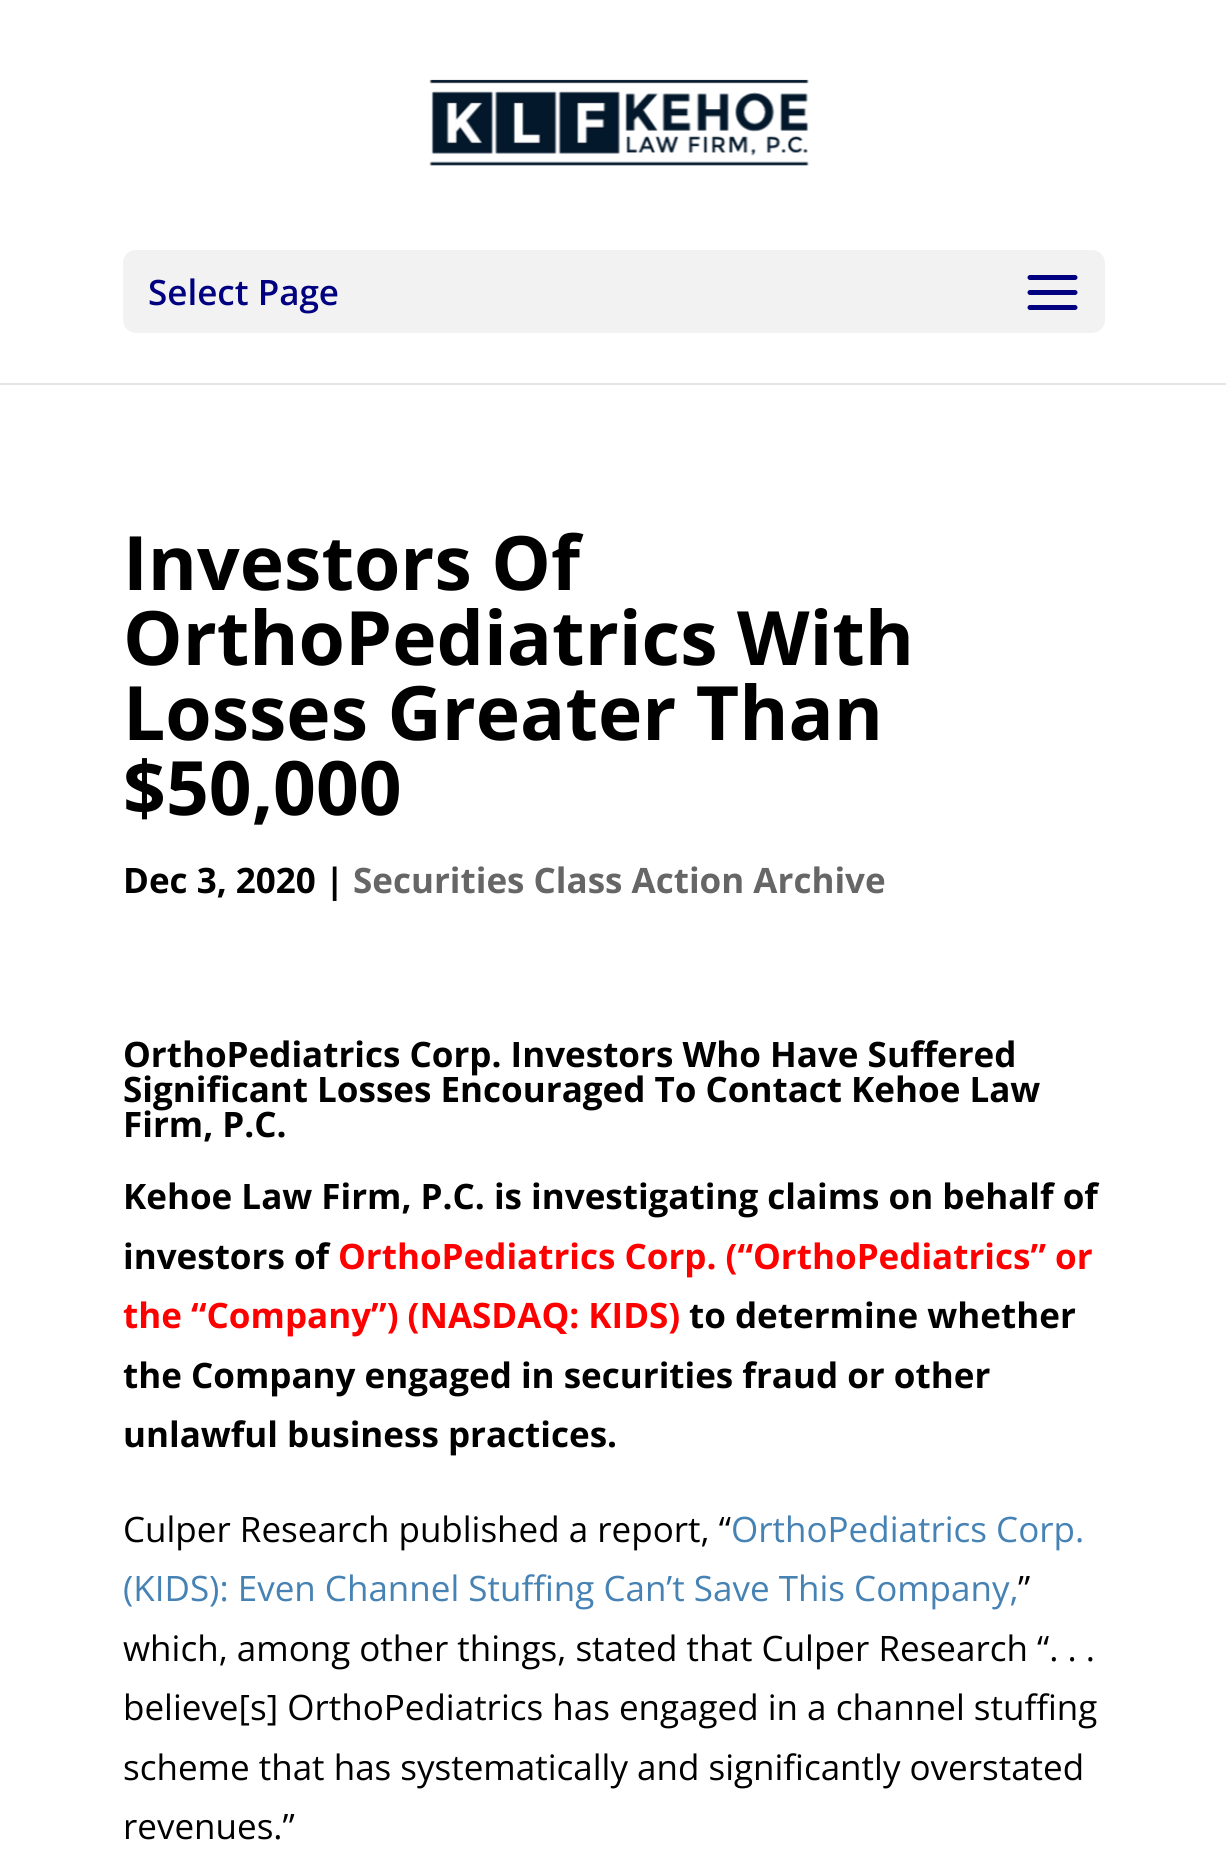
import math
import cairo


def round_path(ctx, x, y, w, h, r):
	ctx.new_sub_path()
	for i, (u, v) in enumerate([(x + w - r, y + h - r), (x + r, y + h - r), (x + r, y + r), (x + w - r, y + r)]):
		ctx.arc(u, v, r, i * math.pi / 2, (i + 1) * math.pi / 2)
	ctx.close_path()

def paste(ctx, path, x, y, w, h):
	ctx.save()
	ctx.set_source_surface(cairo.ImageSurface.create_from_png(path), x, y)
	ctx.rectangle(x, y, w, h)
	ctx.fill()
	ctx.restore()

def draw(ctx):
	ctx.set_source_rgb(1, 1, 1)
	ctx.paint()
	ctx.set_source_rgb(0.902, 0.902, 0.902)
	ctx.new_path()
	ctx.move_to(0, 382)
	ctx.line_to(0, 385)
	ctx.line_to(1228, 385)
	ctx.line_to(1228, 3)
	ctx.line_to(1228, 382)
	ctx.close_path()
	ctx.fill()
	ctx.set_source_rgb(1, 1, 1)
	ctx.rectangle(0, 382, 1226, 1)
	ctx.fill()
	paste(ctx, 'media/1.png', 429, 79, 380, 87)
	ctx.set_source_rgb(0.949, 0.949, 0.949)
	round_path(ctx, 123, 250, 982, 83, 13)
	ctx.fill()
	ctx.select_font_face('Open Sans SemiBold')
	ctx.set_font_size(35)
	ctx.set_source_rgb(0, 0, 0.502)
	ctx.move_to(148, 305)
	ctx.show_text('Select Page')
	paste(ctx, 'media/2.png', 1027, 275, 51, 35)
	ctx.select_font_face('Open Sans', cairo.FONT_SLANT_NORMAL, cairo.FONT_WEIGHT_BOLD)
	ctx.set_font_size(75)
	ctx.set_source_rgb(0, 0, 0)
	for x, y, s in [
		(123, 590, 'Investors Of'),
		(123, 665, 'OrthoPediatrics With'),
		(123, 740, 'Losses Greater Than'),
		(123, 815, '$50,000'),
	]:
		ctx.move_to(x, y)
		ctx.show_text(s)
	ctx.set_font_size(35)
	ctx.move_to(123, 893)
	ctx.show_text('Dec 3, 2020 |')
	ctx.set_source_rgb(0.4, 0.4, 0.4)
	ctx.move_to(353, 893)
	ctx.show_text('Securities Class Action Archive')
	ctx.set_source_rgb(0, 0, 0)
	for x, y, s in [
		(123, 1067, 'OrthoPediatrics Corp. Investors Who Have Suffered'),
		(123, 1102, 'Significant Losses Encouraged To Contact Kehoe Law'),
		(123, 1137, 'Firm, P.C.'),
		(123, 1209, 'Kehoe Law Firm, P.C. is investigating claims on behalf of'),
		(123, 1269, 'investors of'),
	]:
		ctx.move_to(x, y)
		ctx.show_text(s)
	ctx.set_source_rgb(1, 0, 0)
	ctx.move_to(338, 1269)
	ctx.show_text('OrthoPediatrics Corp. (“OrthoPediatrics” or')
	ctx.move_to(123, 1328)
	ctx.show_text('the “Company”) (NASDAQ: KIDS)')
	ctx.set_source_rgb(0, 0, 0)
	for x, y, s in [
		(689, 1328, 'to determine whether'),
		(123, 1388, 'the Company engaged in securities fraud or other'),
		(123, 1447, 'unlawful business practices.'),
	]:
		ctx.move_to(x, y)
		ctx.show_text(s)
	ctx.select_font_face('Open Sans')
	ctx.move_to(123, 1542)
	ctx.show_text('Culper Research published a report, “')
	ctx.set_source_rgb(0.275, 0.51, 0.706)
	ctx.move_to(731, 1542)
	ctx.show_text('OrthoPediatrics Corp.')
	ctx.move_to(123, 1601)
	ctx.show_text('(KIDS): Even Channel Stuffing Can’t Save This Company,')
	ctx.set_source_rgb(0, 0, 0)
	for x, y, s in [
		(1018, 1601, '”'),
		(123, 1661, 'which, among other things, stated that Culper Research “. . .'),
		(123, 1720, 'believe[s] OrthoPediatrics has engaged in a channel stuffing'),
		(123, 1780, 'scheme that has systematically and significantly overstated'),
		(123, 1839, 'revenues.”'),
	]:
		ctx.move_to(x, y)
		ctx.show_text(s)


surface = cairo.ImageSurface(cairo.FORMAT_RGB24, 1226, 1855)
ctx = cairo.Context(surface)
options = cairo.FontOptions()
options.set_hint_metrics(cairo.HINT_METRICS_OFF)
options.set_hint_style(cairo.HINT_STYLE_NONE)
ctx.set_font_options(options)
ctx.set_miter_limit(4)
draw(ctx)
surface.write_to_png('image.png')
